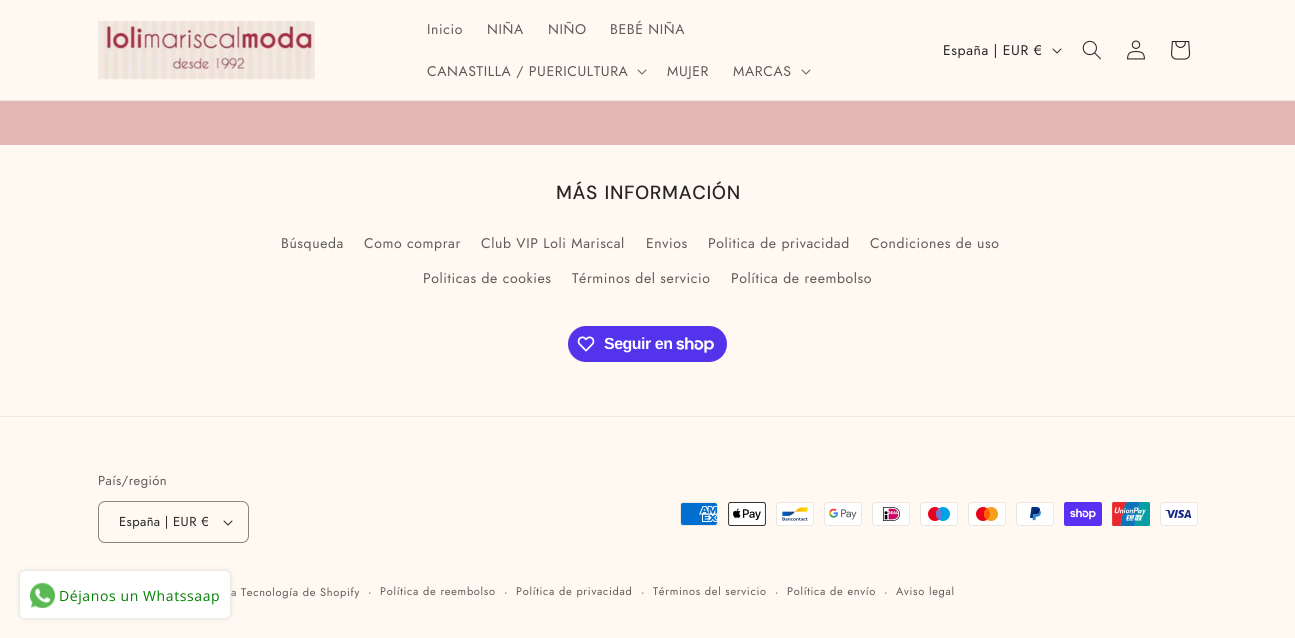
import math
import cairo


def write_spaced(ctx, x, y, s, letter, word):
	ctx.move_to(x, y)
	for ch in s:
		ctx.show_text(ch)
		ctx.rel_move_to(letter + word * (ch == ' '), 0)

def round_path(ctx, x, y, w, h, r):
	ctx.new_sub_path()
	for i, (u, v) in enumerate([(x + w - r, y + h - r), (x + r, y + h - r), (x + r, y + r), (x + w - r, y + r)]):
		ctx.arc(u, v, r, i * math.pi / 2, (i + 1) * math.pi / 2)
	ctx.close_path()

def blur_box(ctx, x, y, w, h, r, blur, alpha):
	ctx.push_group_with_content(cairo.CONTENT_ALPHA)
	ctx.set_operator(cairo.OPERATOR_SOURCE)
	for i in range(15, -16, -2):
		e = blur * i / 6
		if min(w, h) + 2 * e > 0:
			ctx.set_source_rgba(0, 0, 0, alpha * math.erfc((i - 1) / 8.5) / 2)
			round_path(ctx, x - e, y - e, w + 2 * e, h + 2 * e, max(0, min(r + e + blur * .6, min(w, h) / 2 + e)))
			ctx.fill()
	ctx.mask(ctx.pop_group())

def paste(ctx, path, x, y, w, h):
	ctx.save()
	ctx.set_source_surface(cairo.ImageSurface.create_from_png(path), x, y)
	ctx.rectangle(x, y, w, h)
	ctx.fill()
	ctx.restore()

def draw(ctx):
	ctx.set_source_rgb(0.898, 0.714, 0.714)
	ctx.paint()
	ctx.set_source_rgb(1, 0.976, 0.949)
	ctx.rectangle(0, 0, 1295, 100)
	ctx.fill()
	ctx.set_source_rgb(0.933, 0.91, 0.886)
	ctx.rectangle(0, 100, 1295, 1)
	ctx.fill()
	paste(ctx, 'media/1.png', 98, 21, 217, 59)
	ctx.select_font_face('Jost')
	ctx.set_font_size(14)
	ctx.set_source_rgb(0.361, 0.357, 0.349)
	for x, y, s in [
		(427, 34, 'Inicio'),
		(487, 34, 'NIÑA'),
		(548, 34, 'NIÑO'),
		(610, 34, 'BEBÉ NIÑA'),
		(427, 76, 'CANASTILLA / PUERICULTURA'),
	]:
		write_spaced(ctx, x, y, s, 0.6, 0)
	paste(ctx, 'media/2.png', 637, 69, 10, 6)
	write_spaced(ctx, 667, 76, 'MUJER', 0.6, 0)
	write_spaced(ctx, 733, 76, 'MARCAS', 0.6, 0)
	paste(ctx, 'media/2.png', 801, 69, 10, 6)
	ctx.set_source_rgb(0.149, 0.149, 0.149)
	write_spaced(ctx, 943, 55, 'España | EUR €', 0.6, 0)
	paste(ctx, 'media/3.png', 1052, 48, 10, 6)
	paste(ctx, 'media/4.png', 1082, 40, 19, 20)
	paste(ctx, 'media/5.png', 1127, 40, 18, 20)
	paste(ctx, 'media/6.png', 1171, 41, 20, 19)
	ctx.set_source_rgb(1, 0.976, 0.949)
	ctx.rectangle(0, 145, 1295, 493)
	ctx.fill()
	ctx.select_font_face('DM Sans Medium')
	ctx.set_font_size(19)
	ctx.set_source_rgb(0.149, 0.149, 0.149)
	write_spaced(ctx, 556, 199, 'MÁS INFORMACIÓN', 0.6, 1)
	ctx.select_font_face('Jost')
	ctx.set_font_size(14)
	ctx.set_source_rgb(0.361, 0.357, 0.349)
	for x, y, s in [
		(281, 248, 'Búsqueda'),
		(364, 248, 'Como comprar'),
		(481, 248, 'Club VIP Loli Mariscal'),
		(646, 248, 'Envios'),
		(708, 248, 'Politica de privacidad'),
		(870, 248, 'Condiciones de uso'),
		(423, 283, 'Politicas de cookies'),
		(572, 283, 'Términos del servicio'),
		(731, 283, 'Política de reembolso'),
	]:
		write_spaced(ctx, x, y, s, 0.6, 0)
	ctx.set_source_rgb(0.329, 0.2, 0.922)
	round_path(ctx, 568, 326, 159, 36, 18)
	ctx.fill()
	paste(ctx, 'media/7.png', 577, 336, 18, 16)
	ctx.select_font_face('Liberation Sans', cairo.FONT_SLANT_NORMAL, cairo.FONT_WEIGHT_BOLD)
	ctx.set_font_size(16)
	ctx.set_source_rgb(1, 1, 1)
	write_spaced(ctx, 604, 349, 'Seguir en', -0.5, 0)
	paste(ctx, 'media/8.png', 676, 337, 38, 16)
	ctx.set_source_rgb(0.933, 0.91, 0.886)
	ctx.rectangle(0, 416, 1295, 1)
	ctx.fill()
	ctx.select_font_face('Jost')
	ctx.set_font_size(13)
	ctx.set_source_rgb(0.361, 0.357, 0.349)
	write_spaced(ctx, 98, 485, 'País/región', 0.4, 0)
	paste(ctx, 'media/3.png', 223, 520, 10, 6)
	round_path(ctx, 98.5, 501.5, 150, 41, 6.5)
	ctx.set_source_rgb(0.533, 0.522, 0.51)
	ctx.set_line_width(1)
	ctx.stroke()
	ctx.set_source_rgb(0.149, 0.149, 0.149)
	write_spaced(ctx, 119, 526, 'España | EUR €', 0.4, 0)
	paste(ctx, 'media/9.png', 680, 502, 38, 24)
	paste(ctx, 'media/10.png', 728, 502, 38, 24)
	paste(ctx, 'media/11.png', 776, 502, 38, 24)
	paste(ctx, 'media/12.png', 824, 502, 38, 24)
	paste(ctx, 'media/13.png', 872, 502, 38, 24)
	paste(ctx, 'media/14.png', 920, 502, 38, 24)
	paste(ctx, 'media/15.png', 968, 502, 38, 24)
	paste(ctx, 'media/16.png', 1016, 502, 38, 24)
	paste(ctx, 'media/17.png', 1064, 502, 38, 24)
	paste(ctx, 'media/18.png', 1112, 502, 38, 24)
	paste(ctx, 'media/19.png', 1160, 502, 38, 24)
	ctx.set_font_size(11)
	ctx.set_source_rgb(0.361, 0.357, 0.349)
	write_spaced(ctx, 231, 596, 'a', 0.7, 0)
	write_spaced(ctx, 241, 596, 'Tecnología de Shopify', 0.7, 0)
	ctx.set_font_size(12)
	write_spaced(ctx, 368, 596, '·', 0.7, 0)
	ctx.set_font_size(11)
	write_spaced(ctx, 380, 595, 'Política de reembolso', 0.7, 0)
	ctx.set_font_size(12)
	write_spaced(ctx, 504, 596, '·', 0.7, 0)
	ctx.set_font_size(11)
	write_spaced(ctx, 516, 595, 'Política de privacidad', 0.7, 0)
	ctx.set_font_size(12)
	write_spaced(ctx, 641, 596, '·', 0.7, 0)
	ctx.set_font_size(11)
	write_spaced(ctx, 653, 595, 'Términos del servicio', 0.7, 0)
	ctx.set_font_size(12)
	write_spaced(ctx, 775, 596, '·', 0.7, 0)
	ctx.set_font_size(11)
	write_spaced(ctx, 787, 595, 'Política de envío', 0.7, 0)
	ctx.set_font_size(12)
	write_spaced(ctx, 884, 596, '·', 0.7, 0)
	ctx.set_font_size(11)
	write_spaced(ctx, 896, 595, 'Aviso legal', 0.7, 0)
	ctx.set_source_rgb(0.827, 0.827, 0.827)
	blur_box(ctx, 20, 571, 210, 47, 5, 2.5, 1)
	ctx.set_source_rgb(1, 1, 1)
	round_path(ctx, 20, 571, 210, 47, 5)
	ctx.fill()
	paste(ctx, 'media/20.png', 30, 582, 25, 26)
	ctx.select_font_face('Open Sans')
	ctx.set_font_size(14)
	ctx.set_source_rgb(0, 0.502, 0)
	write_spaced(ctx, 59, 601, 'Déjanos un Whatssaap', 0.6, 0)


surface = cairo.ImageSurface(cairo.FORMAT_RGB24, 1295, 638)
ctx = cairo.Context(surface)
options = cairo.FontOptions()
options.set_hint_metrics(cairo.HINT_METRICS_OFF)
options.set_hint_style(cairo.HINT_STYLE_NONE)
ctx.set_font_options(options)
ctx.set_miter_limit(4)
draw(ctx)
surface.write_to_png('image.png')
